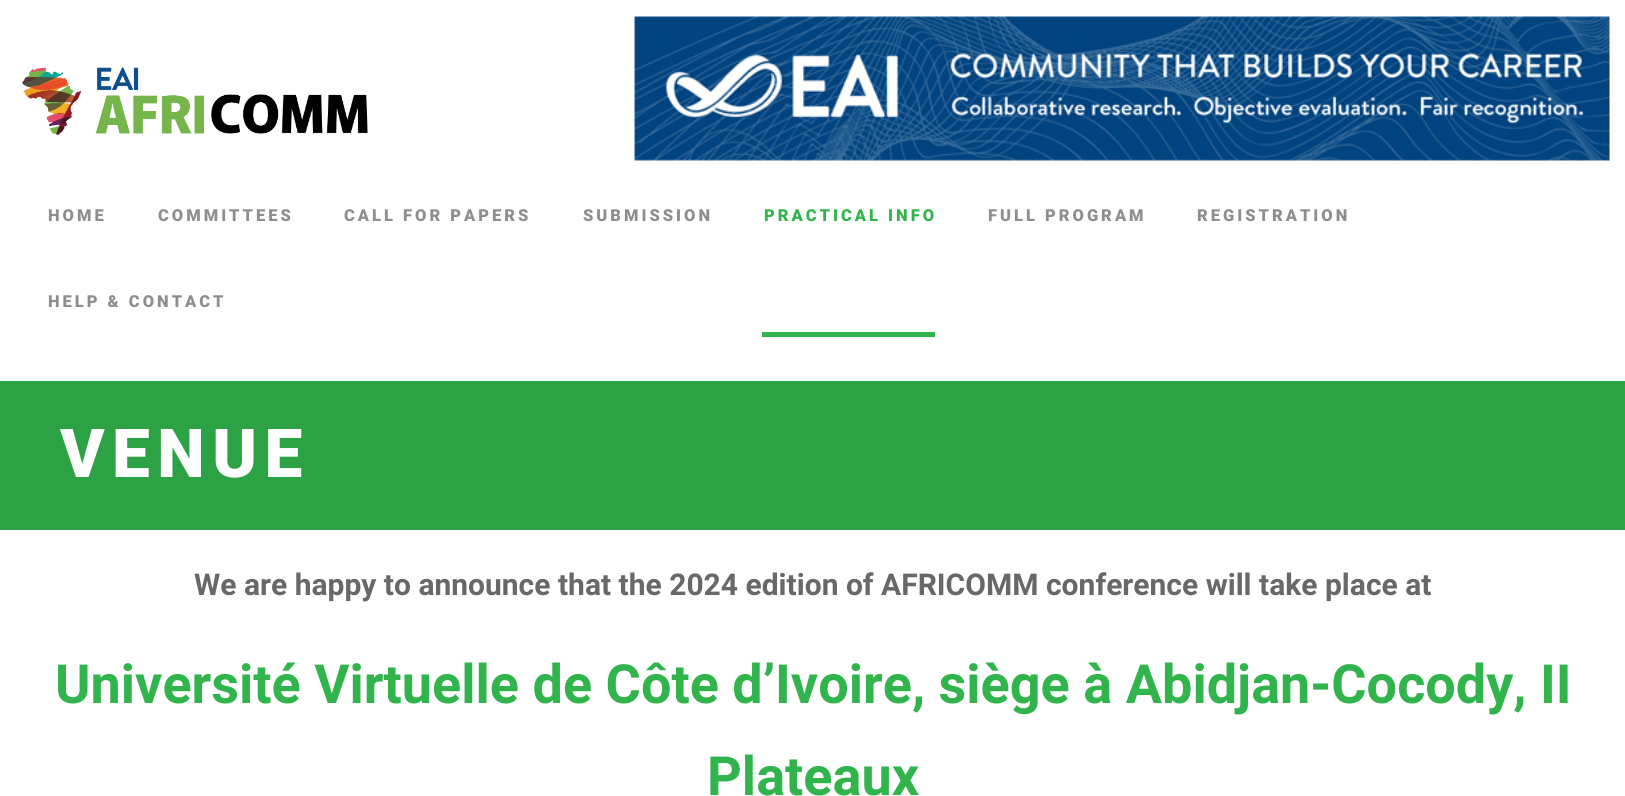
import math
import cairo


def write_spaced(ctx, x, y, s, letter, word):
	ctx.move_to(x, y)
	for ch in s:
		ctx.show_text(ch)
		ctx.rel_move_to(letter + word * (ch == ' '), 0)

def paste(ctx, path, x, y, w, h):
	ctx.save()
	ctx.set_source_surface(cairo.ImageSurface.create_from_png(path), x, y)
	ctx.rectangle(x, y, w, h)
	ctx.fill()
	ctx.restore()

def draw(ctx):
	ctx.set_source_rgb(1, 1, 1)
	ctx.paint()
	paste(ctx, 'media/1.png', 22, 67, 346, 68)
	paste(ctx, 'media/2.png', 634, 16, 976, 145)
	ctx.select_font_face('Roboto Black')
	ctx.set_font_size(16.5)
	ctx.set_source_rgb(0.557, 0.557, 0.557)
	for x, y, s in [
		(48, 221, 'HOME'),
		(158, 221, 'COMMITTEES'),
		(344, 221, 'CALL FOR PAPERS'),
		(583, 221, 'SUBMISSION'),
	]:
		write_spaced(ctx, x, y, s, 3, 0)
	ctx.set_source_rgb(0.192, 0.706, 0.298)
	write_spaced(ctx, 764, 221, 'PRACTICAL INFO', 3, 0)
	ctx.set_source_rgb(0.557, 0.557, 0.557)
	for x, y, s in [
		(988, 221, 'FULL PROGRAM'),
		(1197, 221, 'REGISTRATION'),
		(48, 307, 'HELP & CONTACT'),
	]:
		write_spaced(ctx, x, y, s, 3, 0)
	ctx.set_source_rgb(0.192, 0.706, 0.298)
	ctx.rectangle(762, 332, 173, 5)
	ctx.fill()
	ctx.set_source_rgb(0.173, 0.635, 0.267)
	ctx.rectangle(0, 381, 1625, 149)
	ctx.fill()
	ctx.set_font_size(67.5)
	ctx.set_source_rgb(1, 1, 1)
	write_spaced(ctx, 60, 477, 'VENUE', 7.5, 0)
	ctx.select_font_face('Roboto', cairo.FONT_SLANT_NORMAL, cairo.FONT_WEIGHT_BOLD)
	ctx.set_font_size(30)
	ctx.set_source_rgb(0.408, 0.408, 0.408)
	ctx.move_to(194, 595)
	ctx.show_text('We are happy to announce that the 2024 edition of AFRICOMM conference will take place at')
	ctx.set_font_size(54)
	ctx.set_source_rgb(0.192, 0.706, 0.298)
	ctx.move_to(55, 703)
	ctx.show_text('Université Virtuelle de Côte d’Ivoire, siège à Abidjan-Cocody, II')
	ctx.move_to(707, 795)
	ctx.show_text('Plateaux')


surface = cairo.ImageSurface(cairo.FORMAT_RGB24, 1625, 796)
ctx = cairo.Context(surface)
options = cairo.FontOptions()
options.set_hint_metrics(cairo.HINT_METRICS_OFF)
options.set_hint_style(cairo.HINT_STYLE_NONE)
ctx.set_font_options(options)
ctx.set_miter_limit(4)
draw(ctx)
surface.write_to_png('image.png')
